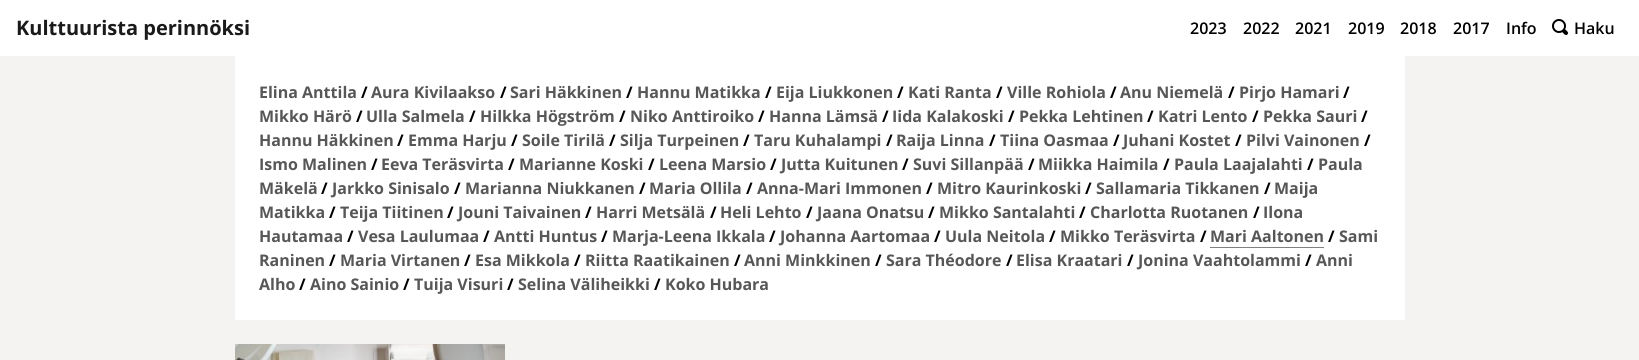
import math
import cairo


def paste(ctx, path, x, y, w, h):
	ctx.save()
	ctx.set_source_surface(cairo.ImageSurface.create_from_png(path), x, y)
	ctx.rectangle(x, y, w, h)
	ctx.fill()
	ctx.restore()

def draw(ctx):
	ctx.set_source_rgb(1, 1, 1)
	ctx.paint()
	ctx.select_font_face('Open Sans', cairo.FONT_SLANT_NORMAL, cairo.FONT_WEIGHT_BOLD)
	ctx.set_font_size(20)
	ctx.set_source_rgb(0.102, 0.102, 0.102)
	ctx.move_to(16, 35)
	ctx.show_text('Kulttuurista perinnöksi')
	ctx.select_font_face('Open Sans SemiBold')
	ctx.set_font_size(16)
	ctx.set_source_rgb(0, 0, 0)
	for x, y, s in [
		(1190, 34, '2023'),
		(1243, 34, '2022'),
		(1295, 34, '2021'),
		(1348, 34, '2019'),
		(1400, 34, '2018'),
		(1453, 34, '2017'),
		(1506, 34, 'Info'),
	]:
		ctx.move_to(x, y)
		ctx.show_text(s)
	paste(ctx, 'media/1.png', 1552, 19, 16, 16)
	ctx.move_to(1574, 34)
	ctx.show_text('Haku')
	ctx.set_source_rgb(0.957, 0.953, 0.949)
	ctx.rectangle(0, 56, 1639, 304)
	ctx.fill()
	ctx.set_source_rgb(1, 1, 1)
	ctx.rectangle(235, 56, 1170, 264)
	ctx.fill()
	ctx.select_font_face('Open Sans', cairo.FONT_SLANT_NORMAL, cairo.FONT_WEIGHT_BOLD)
	ctx.set_source_rgb(0.341, 0.341, 0.341)
	ctx.move_to(259, 98)
	ctx.show_text('Elina Anttila')
	ctx.set_source_rgb(0, 0, 0)
	ctx.move_to(361, 98)
	ctx.show_text('/')
	ctx.set_source_rgb(0.341, 0.341, 0.341)
	ctx.move_to(371, 98)
	ctx.show_text('Aura Kivilaakso')
	ctx.set_source_rgb(0, 0, 0)
	ctx.move_to(500, 98)
	ctx.show_text('/')
	ctx.set_source_rgb(0.341, 0.341, 0.341)
	ctx.move_to(510, 98)
	ctx.show_text('Sari Häkkinen')
	ctx.set_source_rgb(0, 0, 0)
	ctx.move_to(626, 98)
	ctx.show_text('/')
	ctx.set_source_rgb(0.341, 0.341, 0.341)
	ctx.move_to(637, 98)
	ctx.show_text('Hannu Matikka')
	ctx.set_source_rgb(0, 0, 0)
	ctx.move_to(765, 98)
	ctx.show_text('/')
	ctx.set_source_rgb(0.341, 0.341, 0.341)
	ctx.move_to(776, 98)
	ctx.show_text('Eija Liukkonen')
	ctx.set_source_rgb(0, 0, 0)
	ctx.move_to(897, 98)
	ctx.show_text('/')
	ctx.set_source_rgb(0.341, 0.341, 0.341)
	ctx.move_to(908, 98)
	ctx.show_text('Kati Ranta')
	ctx.set_source_rgb(0, 0, 0)
	ctx.move_to(996, 98)
	ctx.show_text('/')
	ctx.set_source_rgb(0.341, 0.341, 0.341)
	ctx.move_to(1007, 98)
	ctx.show_text('Ville Rohiola')
	ctx.set_source_rgb(0, 0, 0)
	ctx.move_to(1110, 98)
	ctx.show_text('/')
	ctx.set_source_rgb(0.341, 0.341, 0.341)
	ctx.move_to(1120, 98)
	ctx.show_text('Anu Niemelä')
	ctx.set_source_rgb(0, 0, 0)
	ctx.move_to(1228, 98)
	ctx.show_text('/')
	ctx.set_source_rgb(0.341, 0.341, 0.341)
	ctx.move_to(1239, 98)
	ctx.show_text('Pirjo Hamari')
	ctx.set_source_rgb(0, 0, 0)
	ctx.move_to(1343, 98)
	ctx.show_text('/')
	ctx.set_source_rgb(0.341, 0.341, 0.341)
	ctx.move_to(259, 122)
	ctx.show_text('Mikko Härö')
	ctx.set_source_rgb(0, 0, 0)
	ctx.move_to(356, 122)
	ctx.show_text('/')
	ctx.set_source_rgb(0.341, 0.341, 0.341)
	ctx.move_to(366, 122)
	ctx.show_text('Ulla Salmela')
	ctx.set_source_rgb(0, 0, 0)
	ctx.move_to(469, 122)
	ctx.show_text('/')
	ctx.set_source_rgb(0.341, 0.341, 0.341)
	ctx.move_to(480, 122)
	ctx.show_text('Hilkka Högström')
	ctx.set_source_rgb(0, 0, 0)
	ctx.move_to(619, 122)
	ctx.show_text('/')
	ctx.set_source_rgb(0.341, 0.341, 0.341)
	ctx.move_to(630, 122)
	ctx.show_text('Niko Anttiroiko')
	ctx.set_source_rgb(0, 0, 0)
	ctx.move_to(758, 122)
	ctx.show_text('/')
	ctx.set_source_rgb(0.341, 0.341, 0.341)
	ctx.move_to(769, 122)
	ctx.show_text('Hanna Lämsä')
	ctx.set_source_rgb(0, 0, 0)
	ctx.move_to(882, 122)
	ctx.show_text('/')
	ctx.set_source_rgb(0.341, 0.341, 0.341)
	ctx.move_to(892, 122)
	ctx.show_text('Iida Kalakoski')
	ctx.set_source_rgb(0, 0, 0)
	ctx.move_to(1008, 122)
	ctx.show_text('/')
	ctx.set_source_rgb(0.341, 0.341, 0.341)
	ctx.move_to(1019, 122)
	ctx.show_text('Pekka Lehtinen')
	ctx.set_source_rgb(0, 0, 0)
	ctx.move_to(1147, 122)
	ctx.show_text('/')
	ctx.set_source_rgb(0.341, 0.341, 0.341)
	ctx.move_to(1158, 122)
	ctx.show_text('Katri Lento')
	ctx.set_source_rgb(0, 0, 0)
	ctx.move_to(1252, 122)
	ctx.show_text('/')
	ctx.set_source_rgb(0.341, 0.341, 0.341)
	ctx.move_to(1263, 122)
	ctx.show_text('Pekka Sauri')
	ctx.set_source_rgb(0, 0, 0)
	ctx.move_to(1361, 122)
	ctx.show_text('/')
	ctx.set_source_rgb(0.341, 0.341, 0.341)
	ctx.move_to(259, 146)
	ctx.show_text('Hannu Häkkinen')
	ctx.set_source_rgb(0, 0, 0)
	ctx.move_to(397, 146)
	ctx.show_text('/')
	ctx.set_source_rgb(0.341, 0.341, 0.341)
	ctx.move_to(408, 146)
	ctx.show_text('Emma Harju')
	ctx.set_source_rgb(0, 0, 0)
	ctx.move_to(511, 146)
	ctx.show_text('/')
	ctx.set_source_rgb(0.341, 0.341, 0.341)
	ctx.move_to(522, 146)
	ctx.show_text('Soile Tirilä')
	ctx.set_source_rgb(0, 0, 0)
	ctx.move_to(609, 146)
	ctx.show_text('/')
	ctx.set_source_rgb(0.341, 0.341, 0.341)
	ctx.move_to(620, 146)
	ctx.show_text('Silja Turpeinen')
	ctx.set_source_rgb(0, 0, 0)
	ctx.move_to(743, 146)
	ctx.show_text('/')
	ctx.set_source_rgb(0.341, 0.341, 0.341)
	ctx.move_to(754, 146)
	ctx.show_text('Taru Kuhalampi')
	ctx.set_source_rgb(0, 0, 0)
	ctx.move_to(886, 146)
	ctx.show_text('/')
	ctx.set_source_rgb(0.341, 0.341, 0.341)
	ctx.move_to(896, 146)
	ctx.show_text('Raija Linna')
	ctx.set_source_rgb(0, 0, 0)
	ctx.move_to(989, 146)
	ctx.show_text('/')
	ctx.set_source_rgb(0.341, 0.341, 0.341)
	ctx.move_to(1000, 146)
	ctx.show_text('Tiina Oasmaa')
	ctx.set_source_rgb(0, 0, 0)
	ctx.move_to(1113, 146)
	ctx.show_text('/')
	ctx.set_source_rgb(0.341, 0.341, 0.341)
	ctx.move_to(1123, 146)
	ctx.show_text('Juhani Kostet')
	ctx.set_source_rgb(0, 0, 0)
	ctx.move_to(1235, 146)
	ctx.show_text('/')
	ctx.set_source_rgb(0.341, 0.341, 0.341)
	ctx.move_to(1246, 146)
	ctx.show_text('Pilvi Vainonen')
	ctx.set_source_rgb(0, 0, 0)
	ctx.move_to(1364, 146)
	ctx.show_text('/')
	ctx.set_source_rgb(0.341, 0.341, 0.341)
	ctx.move_to(259, 170)
	ctx.show_text('Ismo Malinen')
	ctx.set_source_rgb(0, 0, 0)
	ctx.move_to(371, 170)
	ctx.show_text('/')
	ctx.set_source_rgb(0.341, 0.341, 0.341)
	ctx.move_to(381, 170)
	ctx.show_text('Eeva Teräsvirta')
	ctx.set_source_rgb(0, 0, 0)
	ctx.move_to(508, 170)
	ctx.show_text('/')
	ctx.set_source_rgb(0.341, 0.341, 0.341)
	ctx.move_to(519, 170)
	ctx.show_text('Marianne Koski')
	ctx.set_source_rgb(0, 0, 0)
	ctx.move_to(648, 170)
	ctx.show_text('/')
	ctx.set_source_rgb(0.341, 0.341, 0.341)
	ctx.move_to(659, 170)
	ctx.show_text('Leena Marsio')
	ctx.set_source_rgb(0, 0, 0)
	ctx.move_to(770, 170)
	ctx.show_text('/')
	ctx.set_source_rgb(0.341, 0.341, 0.341)
	ctx.move_to(781, 170)
	ctx.show_text('Jutta Kuitunen')
	ctx.set_source_rgb(0, 0, 0)
	ctx.move_to(902, 170)
	ctx.show_text('/')
	ctx.set_source_rgb(0.341, 0.341, 0.341)
	ctx.move_to(913, 170)
	ctx.show_text('Suvi Sillanpää')
	ctx.set_source_rgb(0, 0, 0)
	ctx.move_to(1028, 170)
	ctx.show_text('/')
	ctx.set_source_rgb(0.341, 0.341, 0.341)
	ctx.move_to(1038, 170)
	ctx.show_text('Miikka Haimila')
	ctx.set_source_rgb(0, 0, 0)
	ctx.move_to(1163, 170)
	ctx.show_text('/')
	ctx.set_source_rgb(0.341, 0.341, 0.341)
	ctx.move_to(1174, 170)
	ctx.show_text('Paula Laajalahti')
	ctx.set_source_rgb(0, 0, 0)
	ctx.move_to(1307, 170)
	ctx.show_text('/')
	ctx.set_source_rgb(0.341, 0.341, 0.341)
	ctx.move_to(1318, 170)
	ctx.show_text('Paula')
	ctx.move_to(259, 194)
	ctx.show_text('Mäkelä')
	ctx.set_source_rgb(0, 0, 0)
	ctx.move_to(321, 194)
	ctx.show_text('/')
	ctx.set_source_rgb(0.341, 0.341, 0.341)
	ctx.move_to(332, 194)
	ctx.show_text('Jarkko Sinisalo')
	ctx.set_source_rgb(0, 0, 0)
	ctx.move_to(454, 194)
	ctx.show_text('/')
	ctx.set_source_rgb(0.341, 0.341, 0.341)
	ctx.move_to(465, 194)
	ctx.show_text('Marianna Niukkanen')
	ctx.set_source_rgb(0, 0, 0)
	ctx.move_to(639, 194)
	ctx.show_text('/')
	ctx.set_source_rgb(0.341, 0.341, 0.341)
	ctx.move_to(649, 194)
	ctx.show_text('Maria Ollila')
	ctx.set_source_rgb(0, 0, 0)
	ctx.move_to(746, 194)
	ctx.show_text('/')
	ctx.set_source_rgb(0.341, 0.341, 0.341)
	ctx.move_to(757, 194)
	ctx.show_text('Anna-Mari Immonen')
	ctx.set_source_rgb(0, 0, 0)
	ctx.move_to(926, 194)
	ctx.show_text('/')
	ctx.set_source_rgb(0.341, 0.341, 0.341)
	ctx.move_to(937, 194)
	ctx.show_text('Mitro Kaurinkoski')
	ctx.set_source_rgb(0, 0, 0)
	ctx.move_to(1085, 194)
	ctx.show_text('/')
	ctx.set_source_rgb(0.341, 0.341, 0.341)
	ctx.move_to(1096, 194)
	ctx.show_text('Sallamaria Tikkanen')
	ctx.set_source_rgb(0, 0, 0)
	ctx.move_to(1264, 194)
	ctx.show_text('/')
	ctx.set_source_rgb(0.341, 0.341, 0.341)
	ctx.move_to(1274, 194)
	ctx.show_text('Maija')
	ctx.move_to(259, 218)
	ctx.show_text('Matikka')
	ctx.set_source_rgb(0, 0, 0)
	ctx.move_to(329, 218)
	ctx.show_text('/')
	ctx.set_source_rgb(0.341, 0.341, 0.341)
	ctx.move_to(340, 218)
	ctx.show_text('Teija Tiitinen')
	ctx.set_source_rgb(0, 0, 0)
	ctx.move_to(447, 218)
	ctx.show_text('/')
	ctx.set_source_rgb(0.341, 0.341, 0.341)
	ctx.move_to(458, 218)
	ctx.show_text('Jouni Taivainen')
	ctx.set_source_rgb(0, 0, 0)
	ctx.move_to(585, 218)
	ctx.show_text('/')
	ctx.set_source_rgb(0.341, 0.341, 0.341)
	ctx.move_to(596, 218)
	ctx.show_text('Harri Metsälä')
	ctx.set_source_rgb(0, 0, 0)
	ctx.move_to(710, 218)
	ctx.show_text('/')
	ctx.set_source_rgb(0.341, 0.341, 0.341)
	ctx.move_to(720, 218)
	ctx.show_text('Heli Lehto')
	ctx.set_source_rgb(0, 0, 0)
	ctx.move_to(806, 218)
	ctx.show_text('/')
	ctx.set_source_rgb(0.341, 0.341, 0.341)
	ctx.move_to(817, 218)
	ctx.show_text('Jaana Onatsu')
	ctx.set_source_rgb(0, 0, 0)
	ctx.move_to(928, 218)
	ctx.show_text('/')
	ctx.set_source_rgb(0.341, 0.341, 0.341)
	ctx.move_to(939, 218)
	ctx.show_text('Mikko Santalahti')
	ctx.set_source_rgb(0, 0, 0)
	ctx.move_to(1079, 218)
	ctx.show_text('/')
	ctx.set_source_rgb(0.341, 0.341, 0.341)
	ctx.move_to(1090, 218)
	ctx.show_text('Charlotta Ruotanen')
	ctx.set_source_rgb(0, 0, 0)
	ctx.move_to(1253, 218)
	ctx.show_text('/')
	ctx.set_source_rgb(0.341, 0.341, 0.341)
	ctx.move_to(1263, 218)
	ctx.show_text('Ilona')
	ctx.move_to(259, 242)
	ctx.show_text('Hautamaa')
	ctx.set_source_rgb(0, 0, 0)
	ctx.move_to(347, 242)
	ctx.show_text('/')
	ctx.set_source_rgb(0.341, 0.341, 0.341)
	ctx.move_to(358, 242)
	ctx.show_text('Vesa Laulumaa')
	ctx.set_source_rgb(0, 0, 0)
	ctx.move_to(483, 242)
	ctx.show_text('/')
	ctx.set_source_rgb(0.341, 0.341, 0.341)
	ctx.move_to(494, 242)
	ctx.show_text('Antti Huntus')
	ctx.set_source_rgb(0, 0, 0)
	ctx.move_to(601, 242)
	ctx.show_text('/')
	ctx.set_source_rgb(0.341, 0.341, 0.341)
	ctx.move_to(612, 242)
	ctx.show_text('Marja-Leena Ikkala')
	ctx.set_source_rgb(0, 0, 0)
	ctx.move_to(769, 242)
	ctx.show_text('/')
	ctx.set_source_rgb(0.341, 0.341, 0.341)
	ctx.move_to(780, 242)
	ctx.show_text('Johanna Aartomaa')
	ctx.set_source_rgb(0, 0, 0)
	ctx.move_to(934, 242)
	ctx.show_text('/')
	ctx.set_source_rgb(0.341, 0.341, 0.341)
	ctx.move_to(945, 242)
	ctx.show_text('Uula Neitola')
	ctx.set_source_rgb(0, 0, 0)
	ctx.move_to(1049, 242)
	ctx.show_text('/')
	ctx.set_source_rgb(0.341, 0.341, 0.341)
	ctx.move_to(1060, 242)
	ctx.show_text('Mikko Teräsvirta')
	ctx.set_source_rgb(0, 0, 0)
	ctx.move_to(1200, 242)
	ctx.show_text('/')
	ctx.set_source_rgb(0.341, 0.341, 0.341)
	ctx.move_to(1210, 242)
	ctx.show_text('Mari Aaltonen')
	ctx.set_source_rgb(0.502, 0.502, 0.502)
	ctx.rectangle(1210, 247, 114, 1)
	ctx.fill()
	ctx.set_source_rgb(0, 0, 0)
	ctx.move_to(1328, 242)
	ctx.show_text('/')
	ctx.set_source_rgb(0.341, 0.341, 0.341)
	ctx.move_to(1339, 242)
	ctx.show_text('Sami')
	ctx.move_to(259, 266)
	ctx.show_text('Raninen')
	ctx.set_source_rgb(0, 0, 0)
	ctx.move_to(329, 266)
	ctx.show_text('/')
	ctx.set_source_rgb(0.341, 0.341, 0.341)
	ctx.move_to(340, 266)
	ctx.show_text('Maria Virtanen')
	ctx.set_source_rgb(0, 0, 0)
	ctx.move_to(464, 266)
	ctx.show_text('/')
	ctx.set_source_rgb(0.341, 0.341, 0.341)
	ctx.move_to(475, 266)
	ctx.show_text('Esa Mikkola')
	ctx.set_source_rgb(0, 0, 0)
	ctx.move_to(574, 266)
	ctx.show_text('/')
	ctx.set_source_rgb(0.341, 0.341, 0.341)
	ctx.move_to(585, 266)
	ctx.show_text('Riitta Raatikainen')
	ctx.set_source_rgb(0, 0, 0)
	ctx.move_to(734, 266)
	ctx.show_text('/')
	ctx.set_source_rgb(0.341, 0.341, 0.341)
	ctx.move_to(744, 266)
	ctx.show_text('Anni Minkkinen')
	ctx.set_source_rgb(0, 0, 0)
	ctx.move_to(875, 266)
	ctx.show_text('/')
	ctx.set_source_rgb(0.341, 0.341, 0.341)
	ctx.move_to(886, 266)
	ctx.show_text('Sara Théodore')
	ctx.set_source_rgb(0, 0, 0)
	ctx.move_to(1006, 266)
	ctx.show_text('/')
	ctx.set_source_rgb(0.341, 0.341, 0.341)
	ctx.move_to(1016, 266)
	ctx.show_text('Elisa Kraatari')
	ctx.set_source_rgb(0, 0, 0)
	ctx.move_to(1127, 266)
	ctx.show_text('/')
	ctx.set_source_rgb(0.341, 0.341, 0.341)
	ctx.move_to(1138, 266)
	ctx.show_text('Jonina Vaahtolammi')
	ctx.set_source_rgb(0, 0, 0)
	ctx.move_to(1305, 266)
	ctx.show_text('/')
	ctx.set_source_rgb(0.341, 0.341, 0.341)
	ctx.move_to(1316, 266)
	ctx.show_text('Anni')
	ctx.move_to(259, 290)
	ctx.show_text('Alho')
	ctx.set_source_rgb(0, 0, 0)
	ctx.move_to(299, 290)
	ctx.show_text('/')
	ctx.set_source_rgb(0.341, 0.341, 0.341)
	ctx.move_to(310, 290)
	ctx.show_text('Aino Sainio')
	ctx.set_source_rgb(0, 0, 0)
	ctx.move_to(403, 290)
	ctx.show_text('/')
	ctx.set_source_rgb(0.341, 0.341, 0.341)
	ctx.move_to(414, 290)
	ctx.show_text('Tuija Visuri')
	ctx.set_source_rgb(0, 0, 0)
	ctx.move_to(507, 290)
	ctx.show_text('/')
	ctx.set_source_rgb(0.341, 0.341, 0.341)
	ctx.move_to(518, 290)
	ctx.show_text('Selina Väliheikki')
	ctx.set_source_rgb(0, 0, 0)
	ctx.move_to(654, 290)
	ctx.show_text('/')
	ctx.set_source_rgb(0.341, 0.341, 0.341)
	ctx.move_to(665, 290)
	ctx.show_text('Koko Hubara')
	paste(ctx, 'media/2.png', 235, 344, 270, 16)


surface = cairo.ImageSurface(cairo.FORMAT_RGB24, 1639, 360)
ctx = cairo.Context(surface)
options = cairo.FontOptions()
options.set_hint_metrics(cairo.HINT_METRICS_OFF)
options.set_hint_style(cairo.HINT_STYLE_NONE)
ctx.set_font_options(options)
ctx.set_miter_limit(4)
draw(ctx)
surface.write_to_png('image.png')
